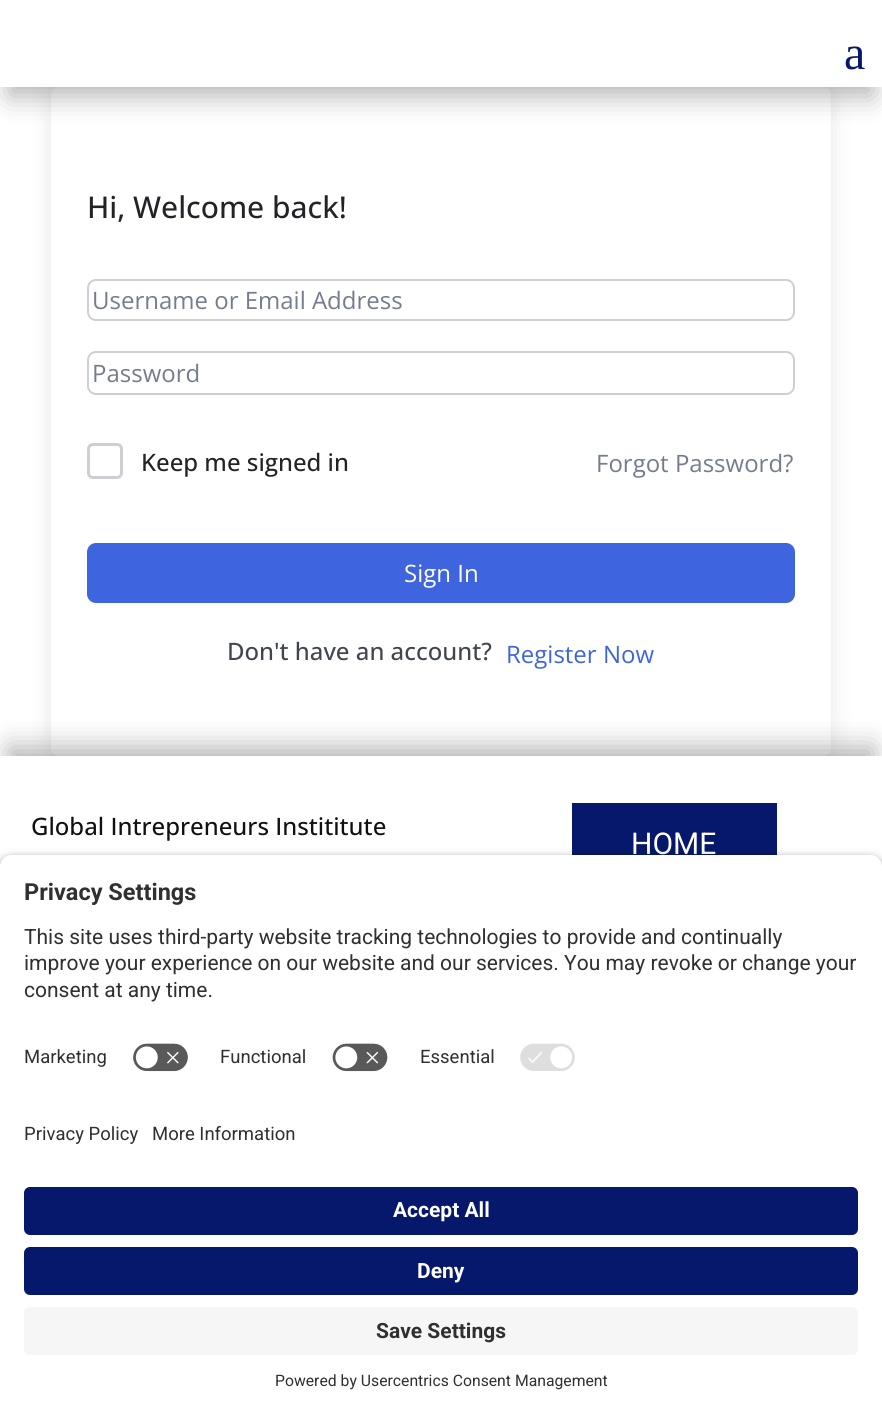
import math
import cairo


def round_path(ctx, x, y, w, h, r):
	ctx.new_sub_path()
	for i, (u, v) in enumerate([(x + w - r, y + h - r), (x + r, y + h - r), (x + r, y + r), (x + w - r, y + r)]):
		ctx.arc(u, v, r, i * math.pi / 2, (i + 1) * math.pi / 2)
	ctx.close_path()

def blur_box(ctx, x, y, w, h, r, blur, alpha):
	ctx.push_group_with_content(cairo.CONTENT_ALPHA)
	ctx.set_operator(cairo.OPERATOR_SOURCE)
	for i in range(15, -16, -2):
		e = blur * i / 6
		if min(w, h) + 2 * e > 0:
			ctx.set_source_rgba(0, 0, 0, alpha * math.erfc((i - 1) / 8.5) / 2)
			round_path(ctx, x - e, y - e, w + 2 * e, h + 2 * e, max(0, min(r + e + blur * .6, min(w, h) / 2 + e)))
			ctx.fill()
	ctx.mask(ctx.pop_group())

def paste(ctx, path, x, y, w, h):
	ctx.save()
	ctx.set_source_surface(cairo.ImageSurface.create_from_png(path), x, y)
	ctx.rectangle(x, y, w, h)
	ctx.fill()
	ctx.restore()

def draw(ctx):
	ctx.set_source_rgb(1, 1, 1)
	ctx.paint()
	ctx.set_source_rgb(0, 0, 0)
	blur_box(ctx, 9, 27, 864, 69, 0, 13.5, 0.3)
	ctx.save()
	ctx.set_fill_rule(cairo.FILL_RULE_EVEN_ODD)
	ctx.new_path()
	ctx.move_to(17, 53)
	ctx.line_to(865, 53)
	ctx.line_to(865, 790)
	ctx.line_to(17, 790)
	ctx.close_path()
	ctx.move_to(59, 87)
	ctx.line_to(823, 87)
	ctx.curve_to(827.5, 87, 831, 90.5, 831, 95)
	ctx.line_to(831, 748)
	ctx.curve_to(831, 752.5, 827.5, 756, 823, 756)
	ctx.line_to(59, 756)
	ctx.curve_to(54.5, 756, 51, 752.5, 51, 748)
	ctx.line_to(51, 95)
	ctx.curve_to(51, 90.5, 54.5, 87, 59, 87)
	ctx.close_path()
	ctx.clip()
	blur_box(ctx, 51, 87, 780, 669, 8, 11, 0.1)
	ctx.restore()
	ctx.set_source_rgb(1, 1, 1)
	ctx.rectangle(0, 2, 882, 85)
	ctx.fill()
	ctx.select_font_face('Liberation Serif')
	ctx.set_font_size(48)
	ctx.set_source_rgb(0.027, 0.094, 0.42)
	ctx.move_to(844, 69)
	ctx.show_text('a')
	ctx.select_font_face('Open Sans Medium')
	ctx.set_font_size(30)
	ctx.set_source_rgb(0.129, 0.137, 0.153)
	ctx.move_to(87, 218)
	ctx.show_text('Hi, Welcome back!')
	round_path(ctx, 88, 280, 706, 40, 8)
	ctx.set_source_rgb(0.804, 0.812, 0.835)
	ctx.stroke()
	ctx.select_font_face('Open Sans')
	ctx.set_font_size(24)
	ctx.set_source_rgb(0.459, 0.486, 0.557)
	ctx.move_to(92, 309)
	ctx.show_text('Username or Email Address')
	round_path(ctx, 88, 352, 706, 42, 8)
	ctx.set_source_rgb(0.804, 0.812, 0.835)
	ctx.stroke()
	ctx.set_source_rgb(0.459, 0.486, 0.557)
	ctx.move_to(92, 382)
	ctx.show_text('Password')
	round_path(ctx, 88.5, 444.5, 33, 33, 4.5)
	ctx.set_source_rgb(0.804, 0.812, 0.835)
	ctx.set_line_width(3)
	ctx.stroke()
	ctx.select_font_face('Open Sans Medium')
	ctx.set_source_rgb(0.129, 0.137, 0.153)
	ctx.move_to(141, 471)
	ctx.show_text('Keep me signed in')
	ctx.select_font_face('Open Sans')
	ctx.set_source_rgb(0.459, 0.486, 0.557)
	ctx.move_to(596, 472)
	ctx.show_text('Forgot Password?')
	ctx.set_source_rgb(0.243, 0.392, 0.871)
	round_path(ctx, 88, 544, 706, 58, 8)
	ctx.fill_preserve()
	ctx.set_line_width(2)
	ctx.stroke()
	ctx.set_source_rgb(1, 1, 1)
	ctx.move_to(404, 582)
	ctx.show_text('Sign In')
	ctx.select_font_face('Open Sans Medium')
	ctx.set_source_rgb(0.255, 0.271, 0.31)
	ctx.move_to(227, 660)
	ctx.show_text('Don\'t have an account?')
	ctx.select_font_face('Open Sans')
	ctx.set_source_rgb(0.243, 0.392, 0.871)
	ctx.move_to(506, 663)
	ctx.show_text('Register Now')
	ctx.set_source_rgb(0, 0, 0)
	blur_box(ctx, 9, 747, 864, 431, 0, 13.5, 0.3)
	ctx.set_source_rgb(1, 1, 1)
	ctx.rectangle(0, 756, 882, 111)
	ctx.fill()
	ctx.select_font_face('Open Sans Medium')
	ctx.set_source_rgb(0.067, 0.067, 0.067)
	ctx.move_to(31, 835)
	ctx.show_text('Global Intrepreneurs Instititute')
	ctx.set_source_rgb(0.027, 0.094, 0.42)
	ctx.rectangle(572, 803, 205, 52)
	ctx.fill()
	ctx.select_font_face('Roboto')
	ctx.set_font_size(30)
	ctx.set_source_rgb(1, 1, 1)
	ctx.move_to(631, 854)
	ctx.show_text('HOME')
	ctx.set_source_rgb(0, 0, 0)
	blur_box(ctx, 0, 860, 882, 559, 12, 5, 0.8)
	ctx.set_source_rgb(1, 1, 1)
	ctx.new_path()
	ctx.move_to(12, 855)
	ctx.line_to(870, 855)
	ctx.curve_to(876.5, 855, 882, 860.5, 882, 867)
	ctx.line_to(882, 1100)
	ctx.line_to(0, 1100)
	ctx.line_to(0, 867)
	ctx.curve_to(0, 860.5, 5.5, 855, 12, 855)
	ctx.close_path()
	ctx.fill()
	ctx.new_path()
	ctx.move_to(12, 855)
	ctx.line_to(870, 855)
	ctx.curve_to(876.5, 855, 882, 860.5, 882, 867)
	ctx.line_to(882, 1034)
	ctx.line_to(0, 1034)
	ctx.line_to(0, 867)
	ctx.curve_to(0, 860.5, 5.5, 855, 12, 855)
	ctx.close_path()
	ctx.fill()
	ctx.select_font_face('Roboto', cairo.FONT_SLANT_NORMAL, cairo.FONT_WEIGHT_BOLD)
	ctx.set_font_size(23.5)
	ctx.set_source_rgb(0.188, 0.188, 0.188)
	ctx.move_to(24, 900)
	ctx.show_text('Privacy Settings')
	ctx.select_font_face('Roboto')
	ctx.set_font_size(21)
	for x, y, s in [
		(24, 944, 'This site uses third-party website tracking technologies to provide and continually'),
		(24, 970, 'improve your experience on our website and our services. You may revoke or change your'),
		(24, 997, 'consent at any time.'),
	]:
		ctx.move_to(x, y)
		ctx.show_text(s)
	ctx.set_font_size(18.5)
	ctx.move_to(24, 1063)
	ctx.show_text('Marketing')
	paste(ctx, 'media/1.png', 133, 1043, 55, 29)
	ctx.move_to(220, 1063)
	ctx.show_text('Functional')
	paste(ctx, 'media/2.png', 332, 1043, 56, 29)
	ctx.move_to(420, 1063)
	ctx.show_text('Essential')
	paste(ctx, 'media/3.png', 520, 1043, 55, 28)
	ctx.set_source_rgb(1, 1, 1)
	ctx.rectangle(0, 1100, 882, 314)
	ctx.fill()
	ctx.set_source_rgb(0.188, 0.188, 0.188)
	ctx.move_to(24, 1140)
	ctx.show_text('Privacy Policy')
	ctx.move_to(152, 1140)
	ctx.show_text('More Information')
	ctx.set_source_rgb(0.027, 0.094, 0.42)
	round_path(ctx, 24, 1187, 834, 48, 6)
	ctx.fill()
	ctx.select_font_face('Roboto', cairo.FONT_SLANT_NORMAL, cairo.FONT_WEIGHT_BOLD)
	ctx.set_font_size(21)
	ctx.set_source_rgb(1, 1, 1)
	ctx.move_to(393, 1217)
	ctx.show_text('Accept All')
	ctx.set_source_rgb(0.027, 0.094, 0.42)
	round_path(ctx, 24, 1247, 834, 48, 6)
	ctx.fill()
	ctx.set_source_rgb(1, 1, 1)
	ctx.move_to(417, 1278)
	ctx.show_text('Deny')
	ctx.set_source_rgb(0.961, 0.961, 0.961)
	round_path(ctx, 24, 1307, 834, 48, 6)
	ctx.fill()
	ctx.set_source_rgb(0.188, 0.188, 0.188)
	ctx.move_to(376, 1338)
	ctx.show_text('Save Settings')
	ctx.select_font_face('Roboto')
	ctx.set_font_size(15.75)
	ctx.move_to(275, 1386)
	ctx.show_text('Powered by Usercentrics Consent Management')


surface = cairo.ImageSurface(cairo.FORMAT_RGB24, 882, 1414)
ctx = cairo.Context(surface)
options = cairo.FontOptions()
options.set_hint_metrics(cairo.HINT_METRICS_OFF)
options.set_hint_style(cairo.HINT_STYLE_NONE)
ctx.set_font_options(options)
ctx.set_miter_limit(4)
draw(ctx)
surface.write_to_png('image.png')
